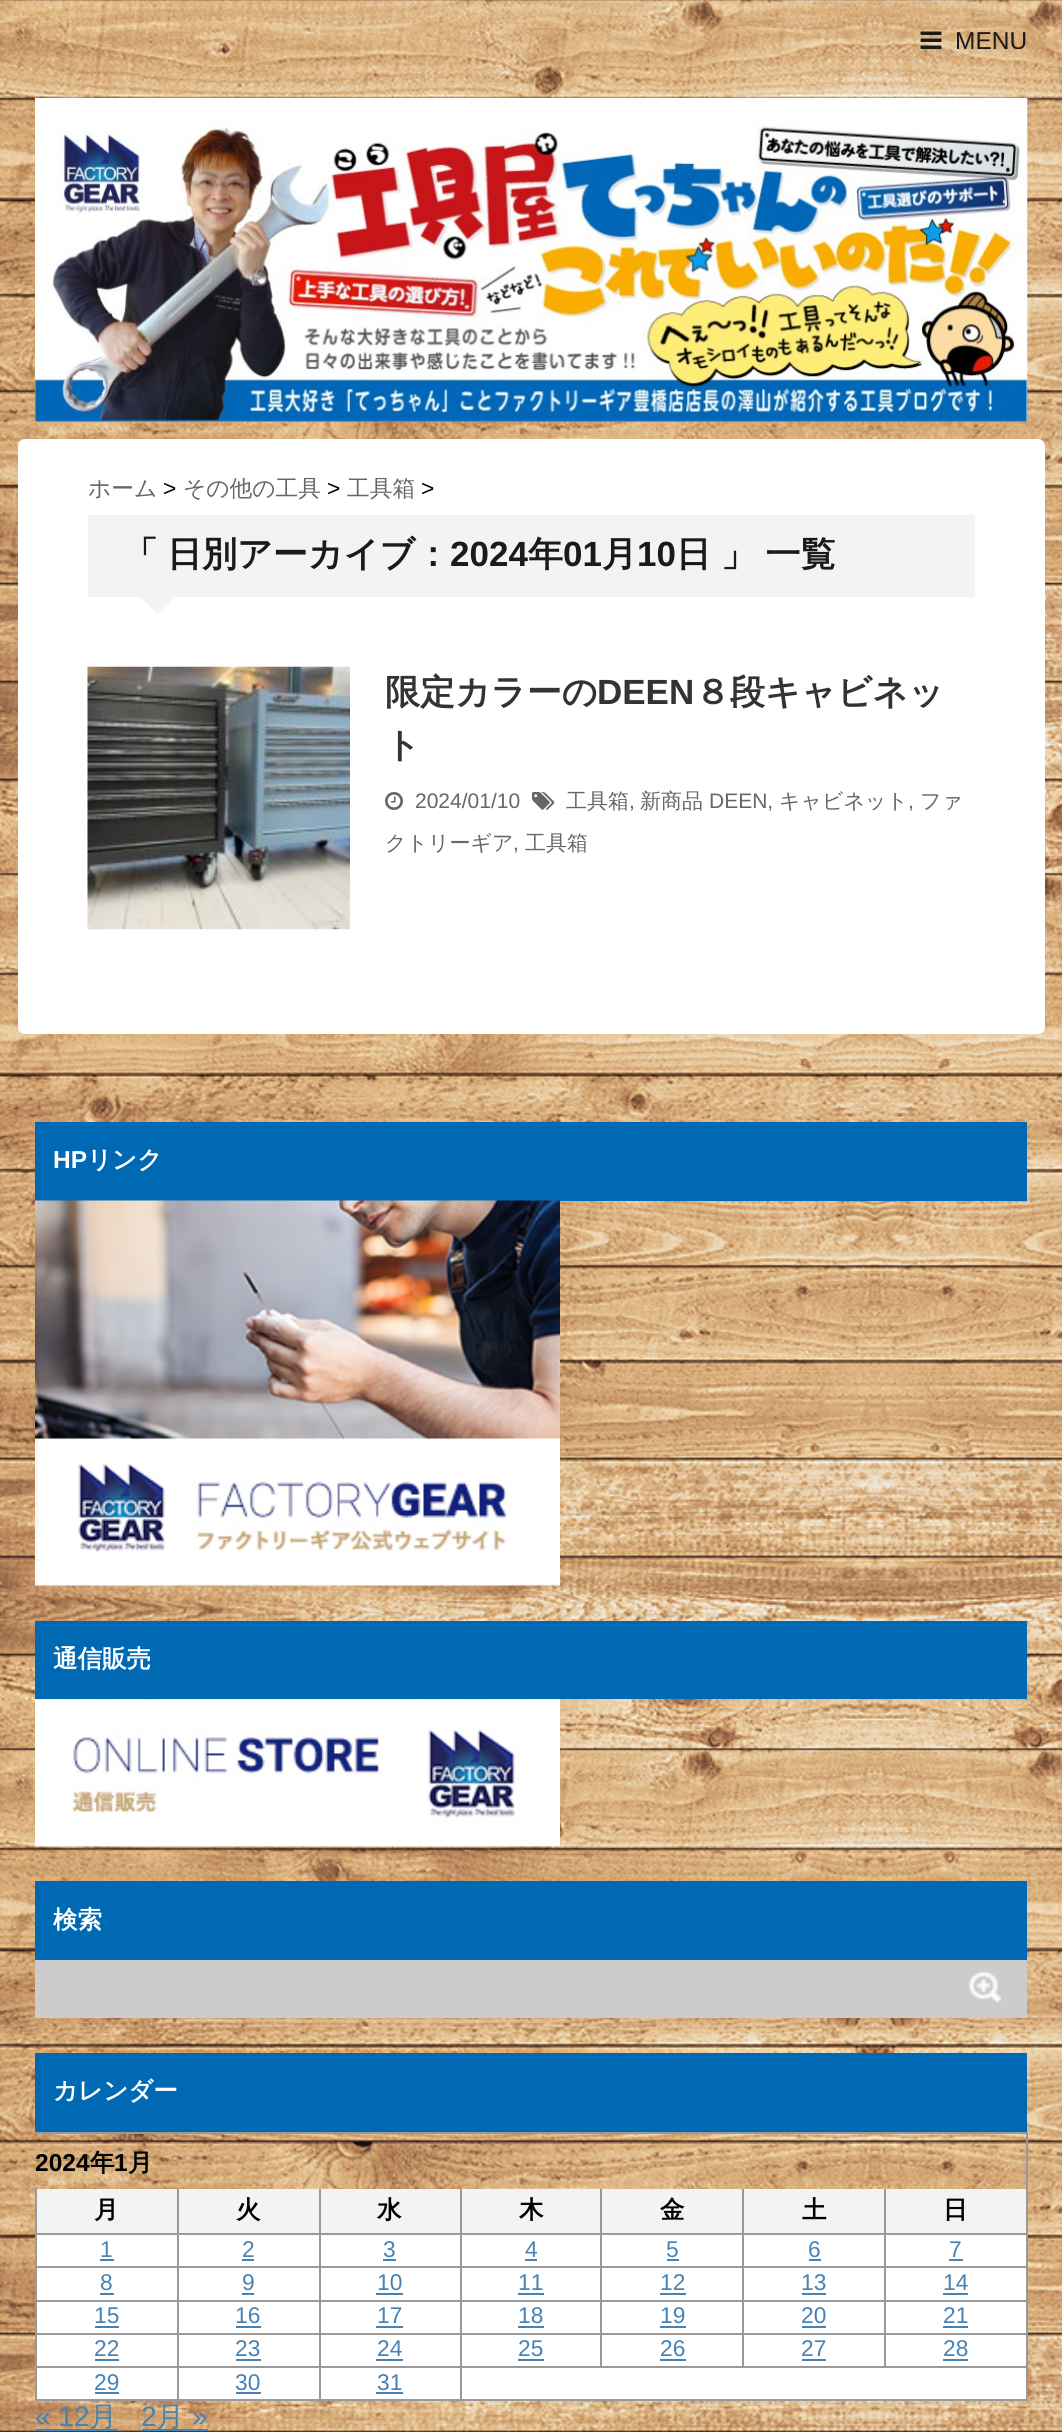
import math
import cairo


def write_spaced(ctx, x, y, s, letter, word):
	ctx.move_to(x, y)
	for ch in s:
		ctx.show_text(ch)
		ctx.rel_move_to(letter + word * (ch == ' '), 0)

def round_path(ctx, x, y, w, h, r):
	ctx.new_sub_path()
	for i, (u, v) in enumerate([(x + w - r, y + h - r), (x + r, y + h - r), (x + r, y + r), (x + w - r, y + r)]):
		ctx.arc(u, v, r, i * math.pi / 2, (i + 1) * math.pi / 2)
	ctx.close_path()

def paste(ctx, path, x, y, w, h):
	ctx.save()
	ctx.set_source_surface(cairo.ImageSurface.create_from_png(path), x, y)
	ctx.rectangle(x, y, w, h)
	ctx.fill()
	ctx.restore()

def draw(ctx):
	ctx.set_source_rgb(1, 1, 1)
	ctx.paint()
	paste(ctx, 'media/1.png', 0, 0, 1062, 2432)
	paste(ctx, 'media/2.png', 920, 31, 22, 18)
	ctx.select_font_face('Liberation Sans')
	ctx.set_font_size(24.5)
	ctx.set_source_rgb(0.102, 0.102, 0.102)
	ctx.move_to(955, 49)
	ctx.show_text('MENU')
	paste(ctx, 'media/3.png', 35, 98, 993, 324)
	ctx.set_source_rgb(1, 1, 1)
	round_path(ctx, 18, 439, 1027, 595, 7)
	ctx.fill()
	ctx.select_font_face('WenQuanYi Zen Hei Medium')
	ctx.set_font_size(22.75)
	ctx.set_source_rgb(0.4, 0.4, 0.4)
	ctx.move_to(88, 496)
	ctx.show_text('ホーム')
	ctx.select_font_face('Liberation Sans')
	ctx.set_source_rgb(0, 0, 0)
	ctx.move_to(163, 496)
	ctx.show_text('>')
	ctx.select_font_face('WenQuanYi Zen Hei Medium')
	ctx.set_source_rgb(0.4, 0.4, 0.4)
	ctx.move_to(183, 496)
	ctx.show_text('その他の工具')
	ctx.select_font_face('Liberation Sans')
	ctx.set_source_rgb(0, 0, 0)
	ctx.move_to(327, 496)
	ctx.show_text('>')
	ctx.select_font_face('WenQuanYi Zen Hei Medium')
	ctx.set_source_rgb(0.4, 0.4, 0.4)
	ctx.move_to(347, 496)
	ctx.show_text('工具箱')
	ctx.select_font_face('Liberation Sans')
	ctx.set_source_rgb(0, 0, 0)
	ctx.move_to(421, 496)
	ctx.show_text('>')
	ctx.set_source_rgb(0.953, 0.953, 0.953)
	ctx.rectangle(88, 515, 887, 82)
	ctx.fill()
	ctx.select_font_face('WenQuanYi Zen Hei', cairo.FONT_SLANT_NORMAL, cairo.FONT_WEIGHT_BOLD)
	ctx.set_font_size(35)
	ctx.set_source_rgb(0.102, 0.102, 0.102)
	ctx.move_to(123, 566)
	ctx.show_text('「')
	ctx.move_to(167, 566)
	ctx.show_text('日別アーカイブ：')
	ctx.select_font_face('Liberation Sans', cairo.FONT_SLANT_NORMAL, cairo.FONT_WEIGHT_BOLD)
	ctx.move_to(450, 566)
	ctx.show_text('2024')
	ctx.select_font_face('WenQuanYi Zen Hei', cairo.FONT_SLANT_NORMAL, cairo.FONT_WEIGHT_BOLD)
	ctx.move_to(528, 566)
	ctx.show_text('年')
	ctx.select_font_face('Liberation Sans', cairo.FONT_SLANT_NORMAL, cairo.FONT_WEIGHT_BOLD)
	ctx.move_to(563, 566)
	ctx.show_text('01')
	ctx.select_font_face('WenQuanYi Zen Hei', cairo.FONT_SLANT_NORMAL, cairo.FONT_WEIGHT_BOLD)
	ctx.move_to(602, 566)
	ctx.show_text('月')
	ctx.select_font_face('Liberation Sans', cairo.FONT_SLANT_NORMAL, cairo.FONT_WEIGHT_BOLD)
	ctx.move_to(637, 566)
	ctx.show_text('10')
	ctx.select_font_face('WenQuanYi Zen Hei', cairo.FONT_SLANT_NORMAL, cairo.FONT_WEIGHT_BOLD)
	ctx.move_to(676, 566)
	ctx.show_text('日')
	write_spaced(ctx, 721, 566, '」 一覧', 0, -1)
	ctx.set_source_rgb(0.953, 0.953, 0.953)
	ctx.new_path()
	ctx.move_to(140, 597)
	ctx.line_to(175, 597)
	ctx.line_to(157.5, 614)
	ctx.close_path()
	ctx.fill()
	ctx.new_path()
	ctx.move_to(143.5, 597)
	ctx.line_to(171.5, 597)
	ctx.curve_to(172.5, 597, 173.5, 597.5, 174, 598)
	ctx.line_to(166, 605.5)
	ctx.line_to(149, 605.5)
	ctx.line_to(141, 598)
	ctx.curve_to(141.5, 597.5, 142.5, 597, 143.5, 597)
	ctx.close_path()
	ctx.fill()
	paste(ctx, 'media/4.png', 87, 666, 263, 264)
	ctx.set_source_rgb(0.2, 0.2, 0.2)
	ctx.move_to(385, 704)
	ctx.show_text('限定カラーの')
	ctx.select_font_face('Liberation Sans', cairo.FONT_SLANT_NORMAL, cairo.FONT_WEIGHT_BOLD)
	ctx.move_to(597, 704)
	ctx.show_text('DEEN')
	ctx.select_font_face('WenQuanYi Zen Hei', cairo.FONT_SLANT_NORMAL, cairo.FONT_WEIGHT_BOLD)
	ctx.move_to(695, 704)
	ctx.show_text('８段キャビネッ')
	ctx.move_to(385, 757)
	ctx.show_text('ト')
	paste(ctx, 'media/5.png', 532, 792, 23, 18)
	ctx.select_font_face('WenQuanYi Zen Hei Medium')
	ctx.set_font_size(21)
	ctx.set_source_rgb(0.4, 0.4, 0.4)
	ctx.move_to(566, 808)
	ctx.show_text('工具箱')
	ctx.select_font_face('Liberation Sans')
	ctx.move_to(629, 808)
	ctx.show_text(',')
	ctx.select_font_face('WenQuanYi Zen Hei Medium')
	ctx.move_to(640, 808)
	ctx.show_text('新商品')
	ctx.select_font_face('Liberation Sans')
	ctx.move_to(709, 808)
	ctx.show_text('DEEN,')
	ctx.select_font_face('WenQuanYi Zen Hei Medium')
	ctx.move_to(779, 808)
	ctx.show_text('キャビネット')
	ctx.select_font_face('Liberation Sans')
	ctx.move_to(908, 808)
	ctx.show_text(',')
	ctx.select_font_face('WenQuanYi Zen Hei Medium')
	ctx.move_to(920, 808)
	ctx.show_text('ファ')
	ctx.move_to(385, 850)
	ctx.show_text('クトリーギア')
	ctx.select_font_face('Liberation Sans')
	ctx.move_to(513, 850)
	ctx.show_text(',')
	ctx.select_font_face('WenQuanYi Zen Hei Medium')
	ctx.move_to(525, 850)
	ctx.show_text('工具箱')
	paste(ctx, 'media/6.png', 385, 792, 18, 18)
	ctx.select_font_face('Liberation Sans')
	ctx.move_to(415, 808)
	ctx.show_text('2024/01/10')
	ctx.set_source_rgb(0, 0.412, 0.702)
	ctx.rectangle(35, 1122, 992, 79)
	ctx.fill()
	ctx.select_font_face('Liberation Sans', cairo.FONT_SLANT_NORMAL, cairo.FONT_WEIGHT_BOLD)
	ctx.set_font_size(24.5)
	ctx.set_source_rgb(1, 1, 1)
	ctx.move_to(53, 1168)
	ctx.show_text('HP')
	ctx.select_font_face('WenQuanYi Zen Hei', cairo.FONT_SLANT_NORMAL, cairo.FONT_WEIGHT_BOLD)
	ctx.move_to(87, 1168)
	ctx.show_text('リンク')
	paste(ctx, 'media/7.png', 35, 1200, 525, 386)
	ctx.set_source_rgb(0, 0.412, 0.702)
	ctx.rectangle(35, 1621, 992, 78)
	ctx.fill()
	ctx.set_source_rgb(1, 1, 1)
	ctx.move_to(53, 1667)
	ctx.show_text('通信販売')
	paste(ctx, 'media/8.png', 35, 1699, 525, 148)
	ctx.set_source_rgb(0, 0.412, 0.702)
	ctx.rectangle(35, 1881, 992, 79)
	ctx.fill()
	ctx.set_source_rgb(1, 1, 1)
	ctx.move_to(53, 1928)
	ctx.show_text('検索')
	ctx.set_source_rgb(0.8, 0.8, 0.8)
	ctx.rectangle(35, 1960, 992, 58)
	ctx.fill()
	paste(ctx, 'media/9.png', 969, 1972, 33, 31)
	ctx.set_source_rgb(0, 0.412, 0.702)
	ctx.rectangle(35, 2053, 992, 79)
	ctx.fill()
	ctx.set_source_rgb(1, 1, 1)
	ctx.move_to(53, 2099)
	ctx.show_text('カレンダー')
	ctx.set_source_rgb(0.6, 0.6, 0.6)
	ctx.rectangle(35, 2132, 992, 2)
	ctx.fill()
	ctx.rectangle(1026, 2132, 2, 269)
	ctx.fill()
	ctx.select_font_face('Liberation Sans', cairo.FONT_SLANT_NORMAL, cairo.FONT_WEIGHT_BOLD)
	ctx.set_source_rgb(0, 0, 0)
	ctx.move_to(35, 2171)
	ctx.show_text('2024')
	ctx.select_font_face('WenQuanYi Zen Hei', cairo.FONT_SLANT_NORMAL, cairo.FONT_WEIGHT_BOLD)
	ctx.move_to(90, 2171)
	ctx.show_text('年')
	ctx.select_font_face('Liberation Sans', cairo.FONT_SLANT_NORMAL, cairo.FONT_WEIGHT_BOLD)
	ctx.move_to(114, 2171)
	ctx.show_text('1')
	ctx.select_font_face('WenQuanYi Zen Hei', cairo.FONT_SLANT_NORMAL, cairo.FONT_WEIGHT_BOLD)
	ctx.move_to(128, 2171)
	ctx.show_text('月')
	ctx.set_source_rgb(0.953, 0.953, 0.953)
	ctx.rectangle(37, 2189, 140, 44)
	ctx.fill()
	ctx.set_source_rgb(0.6, 0.6, 0.6)
	ctx.rectangle(884, 2366, 143, 2)
	ctx.rectangle(884, 2333, 2, 35)
	ctx.rectangle(884, 2333, 143, 2)
	ctx.rectangle(884, 2300, 2, 35)
	ctx.rectangle(884, 2300, 143, 2)
	ctx.rectangle(884, 2266, 2, 35)
	ctx.rectangle(884, 2266, 143, 2)
	ctx.rectangle(884, 2233, 2, 35)
	ctx.rectangle(884, 2233, 143, 2)
	ctx.rectangle(884, 2189, 2, 46)
	ctx.rectangle(742, 2366, 144, 2)
	ctx.rectangle(742, 2333, 2, 35)
	ctx.rectangle(742, 2333, 144, 2)
	ctx.rectangle(742, 2300, 2, 35)
	ctx.rectangle(742, 2300, 144, 2)
	ctx.rectangle(742, 2266, 2, 35)
	ctx.rectangle(742, 2266, 144, 2)
	ctx.rectangle(742, 2233, 2, 35)
	ctx.rectangle(742, 2233, 144, 2)
	ctx.rectangle(742, 2189, 2, 46)
	ctx.rectangle(600, 2366, 144, 2)
	ctx.rectangle(600, 2333, 2, 35)
	ctx.rectangle(600, 2333, 144, 2)
	ctx.rectangle(600, 2300, 2, 35)
	ctx.rectangle(600, 2300, 144, 2)
	ctx.rectangle(600, 2266, 2, 35)
	ctx.rectangle(600, 2266, 144, 2)
	ctx.rectangle(600, 2233, 2, 35)
	ctx.rectangle(600, 2233, 144, 2)
	ctx.rectangle(600, 2189, 2, 46)
	ctx.rectangle(460, 2399, 567, 2)
	ctx.rectangle(460, 2366, 2, 35)
	ctx.rectangle(460, 2366, 142, 2)
	ctx.rectangle(460, 2333, 2, 35)
	ctx.rectangle(460, 2333, 142, 2)
	ctx.rectangle(460, 2300, 2, 35)
	ctx.rectangle(460, 2300, 142, 2)
	ctx.rectangle(460, 2266, 2, 35)
	ctx.rectangle(460, 2266, 142, 2)
	ctx.rectangle(460, 2233, 2, 35)
	ctx.rectangle(460, 2233, 142, 2)
	ctx.rectangle(460, 2189, 2, 46)
	ctx.rectangle(319, 2399, 143, 2)
	ctx.rectangle(319, 2366, 2, 35)
	ctx.rectangle(319, 2366, 143, 2)
	ctx.rectangle(319, 2333, 2, 35)
	ctx.rectangle(319, 2333, 143, 2)
	ctx.rectangle(319, 2300, 2, 35)
	ctx.rectangle(319, 2300, 143, 2)
	ctx.rectangle(319, 2266, 2, 35)
	ctx.rectangle(319, 2266, 143, 2)
	ctx.rectangle(319, 2233, 2, 35)
	ctx.rectangle(319, 2233, 143, 2)
	ctx.rectangle(319, 2189, 2, 46)
	ctx.rectangle(177, 2399, 143, 2)
	ctx.rectangle(177, 2366, 2, 35)
	ctx.rectangle(177, 2366, 143, 2)
	ctx.rectangle(177, 2333, 2, 35)
	ctx.rectangle(177, 2333, 143, 2)
	ctx.rectangle(177, 2300, 2, 35)
	ctx.rectangle(177, 2300, 143, 2)
	ctx.rectangle(177, 2266, 2, 35)
	ctx.rectangle(177, 2266, 143, 2)
	ctx.rectangle(177, 2233, 2, 35)
	ctx.rectangle(177, 2233, 143, 2)
	ctx.rectangle(177, 2189, 2, 46)
	ctx.rectangle(35, 2399, 144, 2)
	ctx.rectangle(35, 2366, 2, 35)
	ctx.rectangle(35, 2366, 144, 2)
	ctx.rectangle(35, 2333, 2, 35)
	ctx.rectangle(35, 2333, 144, 2)
	ctx.rectangle(35, 2300, 2, 35)
	ctx.rectangle(35, 2300, 144, 2)
	ctx.rectangle(35, 2266, 2, 35)
	ctx.rectangle(35, 2266, 144, 2)
	ctx.rectangle(35, 2233, 2, 35)
	ctx.rectangle(35, 2233, 144, 2)
	ctx.rectangle(35, 2189, 2, 46)
	ctx.fill()
	ctx.set_source_rgb(0, 0, 0)
	ctx.move_to(94, 2218)
	ctx.show_text('月')
	ctx.set_source_rgb(0.953, 0.953, 0.953)
	ctx.rectangle(179, 2189, 140, 44)
	ctx.fill()
	ctx.set_source_rgb(0, 0, 0)
	ctx.move_to(236, 2218)
	ctx.show_text('火')
	ctx.set_source_rgb(0.953, 0.953, 0.953)
	ctx.rectangle(321, 2189, 139, 44)
	ctx.fill()
	ctx.set_source_rgb(0, 0, 0)
	ctx.move_to(377, 2218)
	ctx.show_text('水')
	ctx.set_source_rgb(0.953, 0.953, 0.953)
	ctx.rectangle(462, 2189, 138, 44)
	ctx.fill()
	ctx.set_source_rgb(0, 0, 0)
	ctx.move_to(519, 2218)
	ctx.show_text('木')
	ctx.set_source_rgb(0.953, 0.953, 0.953)
	ctx.rectangle(602, 2189, 140, 44)
	ctx.fill()
	ctx.set_source_rgb(0, 0, 0)
	ctx.move_to(660, 2218)
	ctx.show_text('金')
	ctx.set_source_rgb(0.953, 0.953, 0.953)
	ctx.rectangle(744, 2189, 140, 44)
	ctx.fill()
	ctx.set_source_rgb(0, 0, 0)
	ctx.move_to(802, 2218)
	ctx.show_text('土')
	ctx.set_source_rgb(0.953, 0.953, 0.953)
	ctx.rectangle(886, 2189, 140, 44)
	ctx.fill()
	ctx.set_source_rgb(0, 0, 0)
	ctx.move_to(943, 2218)
	ctx.show_text('日')
	ctx.set_source_rgb(1, 1, 1)
	ctx.rectangle(37, 2235, 140, 31)
	ctx.fill()
	ctx.select_font_face('Liberation Sans')
	ctx.set_font_size(22.75)
	ctx.set_source_rgb(0.275, 0.51, 0.706)
	ctx.move_to(100, 2257)
	ctx.show_text('1')
	ctx.rectangle(100, 2259, 14, 2)
	ctx.fill()
	ctx.set_source_rgb(1, 1, 1)
	ctx.rectangle(179, 2235, 140, 31)
	ctx.fill()
	ctx.set_source_rgb(0.275, 0.51, 0.706)
	ctx.move_to(242, 2257)
	ctx.show_text('2')
	ctx.rectangle(242, 2259, 12, 2)
	ctx.fill()
	ctx.set_source_rgb(1, 1, 1)
	ctx.rectangle(321, 2235, 139, 31)
	ctx.fill()
	ctx.set_source_rgb(0.275, 0.51, 0.706)
	ctx.move_to(383, 2257)
	ctx.show_text('3')
	ctx.rectangle(383, 2259, 13, 2)
	ctx.fill()
	ctx.set_source_rgb(1, 1, 1)
	ctx.rectangle(462, 2235, 138, 31)
	ctx.fill()
	ctx.set_source_rgb(0.275, 0.51, 0.706)
	ctx.move_to(525, 2257)
	ctx.show_text('4')
	ctx.rectangle(525, 2259, 12, 2)
	ctx.fill()
	ctx.set_source_rgb(1, 1, 1)
	ctx.rectangle(602, 2235, 140, 31)
	ctx.fill()
	ctx.set_source_rgb(0.275, 0.51, 0.706)
	ctx.move_to(666, 2257)
	ctx.show_text('5')
	ctx.rectangle(667, 2259, 12, 2)
	ctx.fill()
	ctx.set_source_rgb(1, 1, 1)
	ctx.rectangle(744, 2235, 140, 31)
	ctx.fill()
	ctx.set_source_rgb(0.275, 0.51, 0.706)
	ctx.move_to(808, 2257)
	ctx.show_text('6')
	ctx.rectangle(809, 2259, 12, 2)
	ctx.fill()
	ctx.set_source_rgb(1, 1, 1)
	ctx.rectangle(886, 2235, 140, 31)
	ctx.fill()
	ctx.set_source_rgb(0.275, 0.51, 0.706)
	ctx.move_to(949, 2257)
	ctx.show_text('7')
	ctx.rectangle(949, 2259, 14, 2)
	ctx.fill()
	ctx.set_source_rgb(1, 1, 1)
	ctx.rectangle(37, 2268, 140, 32)
	ctx.fill()
	ctx.set_source_rgb(0.275, 0.51, 0.706)
	ctx.move_to(100, 2290)
	ctx.show_text('8')
	ctx.rectangle(100, 2293, 14, 2)
	ctx.fill()
	ctx.set_source_rgb(1, 1, 1)
	ctx.rectangle(179, 2268, 140, 32)
	ctx.fill()
	ctx.set_source_rgb(0.275, 0.51, 0.706)
	ctx.move_to(242, 2290)
	ctx.show_text('9')
	ctx.rectangle(242, 2293, 12, 2)
	ctx.fill()
	ctx.set_source_rgb(1, 1, 1)
	ctx.rectangle(321, 2268, 139, 32)
	ctx.fill()
	ctx.set_source_rgb(0.275, 0.51, 0.706)
	ctx.move_to(377, 2290)
	ctx.show_text('10')
	ctx.rectangle(376, 2293, 27, 2)
	ctx.fill()
	ctx.set_source_rgb(1, 1, 1)
	ctx.rectangle(462, 2268, 138, 32)
	ctx.fill()
	ctx.set_source_rgb(0.275, 0.51, 0.706)
	ctx.move_to(518, 2290)
	ctx.show_text('11')
	ctx.rectangle(518, 2293, 26, 2)
	ctx.fill()
	ctx.set_source_rgb(1, 1, 1)
	ctx.rectangle(602, 2268, 140, 32)
	ctx.fill()
	ctx.set_source_rgb(0.275, 0.51, 0.706)
	ctx.move_to(660, 2290)
	ctx.show_text('12')
	ctx.rectangle(660, 2293, 26, 2)
	ctx.fill()
	ctx.set_source_rgb(1, 1, 1)
	ctx.rectangle(744, 2268, 140, 32)
	ctx.fill()
	ctx.set_source_rgb(0.275, 0.51, 0.706)
	ctx.move_to(801, 2290)
	ctx.show_text('13')
	ctx.rectangle(802, 2293, 24, 2)
	ctx.fill()
	ctx.set_source_rgb(1, 1, 1)
	ctx.rectangle(886, 2268, 140, 32)
	ctx.fill()
	ctx.set_source_rgb(0.275, 0.51, 0.706)
	ctx.move_to(943, 2290)
	ctx.show_text('14')
	ctx.rectangle(943, 2293, 25, 2)
	ctx.fill()
	ctx.set_source_rgb(1, 1, 1)
	ctx.rectangle(37, 2302, 140, 31)
	ctx.fill()
	ctx.set_source_rgb(0.275, 0.51, 0.706)
	ctx.move_to(94, 2323)
	ctx.show_text('15')
	ctx.rectangle(95, 2326, 24, 2)
	ctx.fill()
	ctx.set_source_rgb(1, 1, 1)
	ctx.rectangle(179, 2302, 140, 31)
	ctx.fill()
	ctx.set_source_rgb(0.275, 0.51, 0.706)
	ctx.move_to(235, 2323)
	ctx.show_text('16')
	ctx.rectangle(236, 2326, 25, 2)
	ctx.fill()
	ctx.set_source_rgb(1, 1, 1)
	ctx.rectangle(321, 2302, 139, 31)
	ctx.fill()
	ctx.set_source_rgb(0.275, 0.51, 0.706)
	ctx.move_to(377, 2323)
	ctx.show_text('17')
	ctx.rectangle(376, 2326, 27, 2)
	ctx.fill()
	ctx.set_source_rgb(1, 1, 1)
	ctx.rectangle(462, 2302, 138, 31)
	ctx.fill()
	ctx.set_source_rgb(0.275, 0.51, 0.706)
	ctx.move_to(518, 2323)
	ctx.show_text('18')
	ctx.rectangle(518, 2326, 26, 2)
	ctx.fill()
	ctx.set_source_rgb(1, 1, 1)
	ctx.rectangle(602, 2302, 140, 31)
	ctx.fill()
	ctx.set_source_rgb(0.275, 0.51, 0.706)
	ctx.move_to(660, 2323)
	ctx.show_text('19')
	ctx.rectangle(660, 2326, 26, 2)
	ctx.fill()
	ctx.set_source_rgb(1, 1, 1)
	ctx.rectangle(744, 2302, 140, 31)
	ctx.fill()
	ctx.set_source_rgb(0.275, 0.51, 0.706)
	ctx.move_to(801, 2323)
	ctx.show_text('20')
	ctx.rectangle(802, 2326, 24, 2)
	ctx.fill()
	ctx.set_source_rgb(1, 1, 1)
	ctx.rectangle(886, 2302, 140, 31)
	ctx.fill()
	ctx.set_source_rgb(0.275, 0.51, 0.706)
	ctx.move_to(943, 2323)
	ctx.show_text('21')
	ctx.rectangle(943, 2326, 25, 2)
	ctx.fill()
	ctx.set_source_rgb(1, 1, 1)
	ctx.rectangle(37, 2335, 140, 31)
	ctx.fill()
	ctx.set_source_rgb(0.275, 0.51, 0.706)
	ctx.move_to(94, 2356)
	ctx.show_text('22')
	ctx.rectangle(95, 2359, 24, 2)
	ctx.fill()
	ctx.set_source_rgb(1, 1, 1)
	ctx.rectangle(179, 2335, 140, 31)
	ctx.fill()
	ctx.set_source_rgb(0.275, 0.51, 0.706)
	ctx.move_to(235, 2356)
	ctx.show_text('23')
	ctx.rectangle(236, 2359, 25, 2)
	ctx.fill()
	ctx.set_source_rgb(1, 1, 1)
	ctx.rectangle(321, 2335, 139, 31)
	ctx.fill()
	ctx.set_source_rgb(0.275, 0.51, 0.706)
	ctx.move_to(377, 2356)
	ctx.show_text('24')
	ctx.rectangle(376, 2359, 27, 2)
	ctx.fill()
	ctx.set_source_rgb(1, 1, 1)
	ctx.rectangle(462, 2335, 138, 31)
	ctx.fill()
	ctx.set_source_rgb(0.275, 0.51, 0.706)
	ctx.move_to(518, 2356)
	ctx.show_text('25')
	ctx.rectangle(518, 2359, 26, 2)
	ctx.fill()
	ctx.set_source_rgb(1, 1, 1)
	ctx.rectangle(602, 2335, 140, 31)
	ctx.fill()
	ctx.set_source_rgb(0.275, 0.51, 0.706)
	ctx.move_to(660, 2356)
	ctx.show_text('26')
	ctx.rectangle(660, 2359, 26, 2)
	ctx.fill()
	ctx.set_source_rgb(1, 1, 1)
	ctx.rectangle(744, 2335, 140, 31)
	ctx.fill()
	ctx.set_source_rgb(0.275, 0.51, 0.706)
	ctx.move_to(801, 2356)
	ctx.show_text('27')
	ctx.rectangle(802, 2359, 24, 2)
	ctx.fill()
	ctx.set_source_rgb(1, 1, 1)
	ctx.rectangle(886, 2335, 140, 31)
	ctx.fill()
	ctx.set_source_rgb(0.275, 0.51, 0.706)
	ctx.move_to(943, 2356)
	ctx.show_text('28')
	ctx.rectangle(943, 2359, 25, 2)
	ctx.fill()
	ctx.set_source_rgb(1, 1, 1)
	ctx.rectangle(37, 2368, 140, 31)
	ctx.fill()
	ctx.set_source_rgb(0.275, 0.51, 0.706)
	ctx.move_to(94, 2390)
	ctx.show_text('29')
	ctx.rectangle(95, 2392, 24, 2)
	ctx.fill()
	ctx.set_source_rgb(1, 1, 1)
	ctx.rectangle(179, 2368, 140, 31)
	ctx.fill()
	ctx.set_source_rgb(0.275, 0.51, 0.706)
	ctx.move_to(235, 2390)
	ctx.show_text('30')
	ctx.rectangle(236, 2392, 25, 2)
	ctx.fill()
	ctx.set_source_rgb(1, 1, 1)
	ctx.rectangle(321, 2368, 139, 31)
	ctx.fill()
	ctx.set_source_rgb(0.275, 0.51, 0.706)
	ctx.move_to(377, 2390)
	ctx.show_text('31')
	ctx.rectangle(376, 2392, 27, 2)
	ctx.fill()
	ctx.set_source_rgb(1, 1, 1)
	ctx.rectangle(462, 2368, 564, 31)
	ctx.fill()
	ctx.set_font_size(28)
	ctx.set_source_rgb(0.275, 0.51, 0.706)
	ctx.move_to(35, 2426)
	ctx.show_text('« 12')
	ctx.rectangle(35, 2429, 82, 2)
	ctx.fill()
	ctx.select_font_face('WenQuanYi Zen Hei Medium')
	ctx.move_to(89, 2426)
	ctx.show_text('月')
	ctx.select_font_face('Liberation Sans')
	ctx.move_to(141, 2426)
	ctx.show_text('2')
	ctx.rectangle(142, 2429, 66, 2)
	ctx.fill()
	ctx.select_font_face('WenQuanYi Zen Hei Medium')
	ctx.move_to(156, 2426)
	ctx.show_text('月')
	ctx.select_font_face('Liberation Sans')
	ctx.move_to(192, 2426)
	ctx.show_text('»')


surface = cairo.ImageSurface(cairo.FORMAT_RGB24, 1062, 2432)
ctx = cairo.Context(surface)
options = cairo.FontOptions()
options.set_hint_metrics(cairo.HINT_METRICS_OFF)
options.set_hint_style(cairo.HINT_STYLE_NONE)
ctx.set_font_options(options)
ctx.set_miter_limit(4)
draw(ctx)
surface.write_to_png('image.png')
